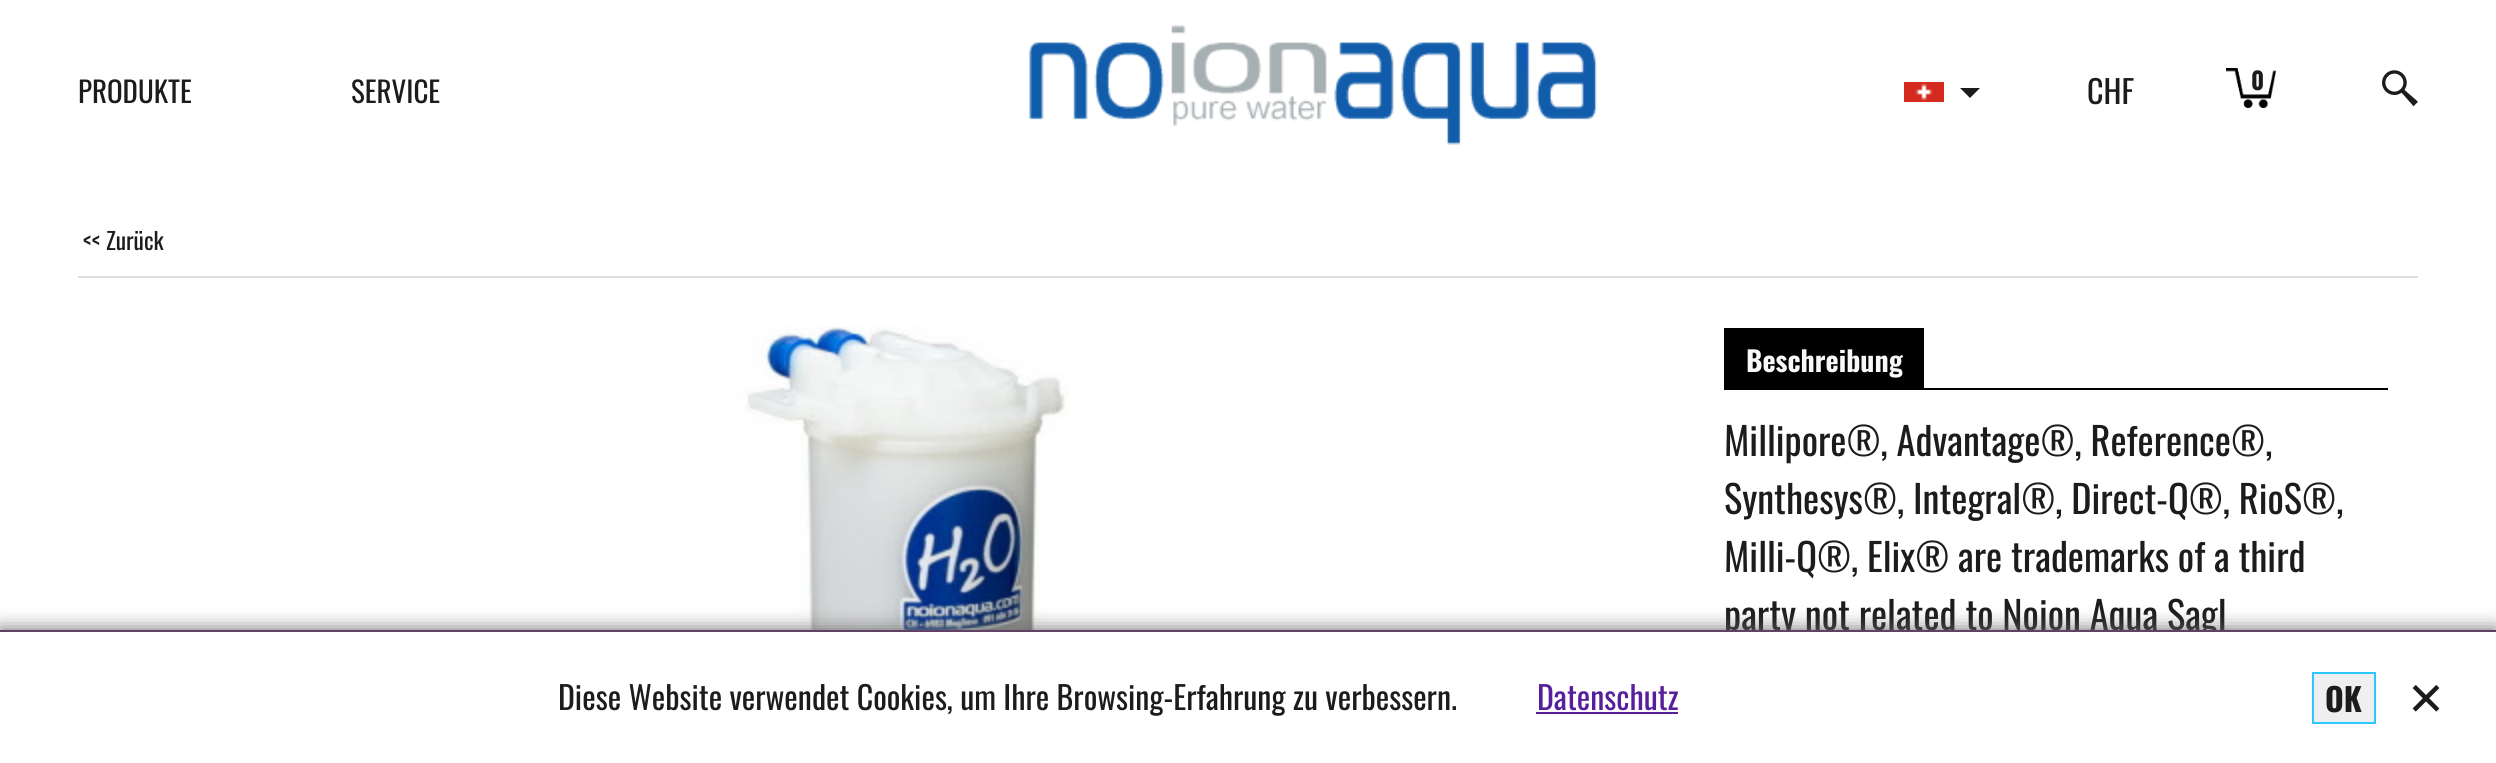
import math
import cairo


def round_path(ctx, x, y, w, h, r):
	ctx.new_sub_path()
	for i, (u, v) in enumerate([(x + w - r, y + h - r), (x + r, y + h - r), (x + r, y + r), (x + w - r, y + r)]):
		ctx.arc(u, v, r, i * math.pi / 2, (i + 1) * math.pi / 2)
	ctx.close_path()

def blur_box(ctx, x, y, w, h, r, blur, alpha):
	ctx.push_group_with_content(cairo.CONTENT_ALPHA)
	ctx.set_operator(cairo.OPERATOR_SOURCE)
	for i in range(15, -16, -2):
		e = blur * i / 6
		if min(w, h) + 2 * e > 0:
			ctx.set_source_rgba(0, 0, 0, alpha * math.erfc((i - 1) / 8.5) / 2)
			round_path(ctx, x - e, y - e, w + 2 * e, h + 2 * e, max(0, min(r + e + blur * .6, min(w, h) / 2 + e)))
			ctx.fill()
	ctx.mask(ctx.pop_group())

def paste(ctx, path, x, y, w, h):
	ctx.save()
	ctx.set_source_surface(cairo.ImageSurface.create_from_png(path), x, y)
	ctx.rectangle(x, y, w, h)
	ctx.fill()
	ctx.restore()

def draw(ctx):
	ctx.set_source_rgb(1, 1, 1)
	ctx.paint()
	ctx.select_font_face('Oswald')
	ctx.set_font_size(29)
	ctx.set_source_rgb(0.11, 0.11, 0.11)
	ctx.move_to(78, 103)
	ctx.show_text('PRODUKTE')
	ctx.move_to(351, 103)
	ctx.show_text('SERVICE')
	paste(ctx, 'media/1.png', 1029, 25, 568, 120)
	paste(ctx, 'media/2.png', 1904, 82, 40, 20)
	ctx.new_path()
	ctx.move_to(1960, 88)
	ctx.line_to(1970, 98)
	ctx.line_to(1980, 88)
	ctx.close_path()
	ctx.fill()
	ctx.set_font_size(32)
	ctx.move_to(2087, 104)
	ctx.show_text('CHF')
	paste(ctx, 'media/3.png', 2226, 68, 50, 40)
	ctx.select_font_face('Oswald', cairo.FONT_SLANT_NORMAL, cairo.FONT_WEIGHT_BOLD)
	ctx.set_font_size(24)
	ctx.move_to(2251, 90)
	ctx.show_text('0')
	paste(ctx, 'media/4.png', 2382, 70, 36, 37)
	ctx.set_source_rgb(0.871, 0.871, 0.871)
	ctx.rectangle(78, 276, 2340, 2)
	ctx.fill()
	ctx.select_font_face('Oswald')
	ctx.set_font_size(23.5)
	ctx.set_source_rgb(0.11, 0.11, 0.11)
	ctx.move_to(83, 250)
	ctx.show_text('<< Zurück')
	paste(ctx, 'media/5.png', 738, 326, 332, 304)
	ctx.set_source_rgb(0, 0, 0)
	ctx.rectangle(1724, 328, 200, 62)
	ctx.fill()
	ctx.select_font_face('Oswald', cairo.FONT_SLANT_NORMAL, cairo.FONT_WEIGHT_BOLD)
	ctx.set_font_size(28)
	ctx.set_source_rgb(0.969, 0.969, 0.969)
	ctx.move_to(1746, 372)
	ctx.show_text('Beschreibung')
	ctx.set_source_rgb(0, 0, 0)
	ctx.rectangle(1924, 388, 464, 2)
	ctx.fill()
	ctx.select_font_face('Oswald')
	ctx.set_font_size(38.4)
	ctx.set_source_rgb(0.11, 0.11, 0.11)
	for x, y, s in [
		(1724, 456, 'Millipore®, Advantage®, Reference®,'),
		(1724, 514, 'Synthesys®, Integral®, Direct-Q®, RioS®,'),
		(1724, 572, 'Milli-Q®, Elix® are trademarks of a third'),
		(1724, 630, 'party not related to Noion Aqua Sagl'),
	]:
		ctx.move_to(x, y)
		ctx.show_text(s)
	ctx.set_source_rgb(0.4, 0.4, 0.4)
	blur_box(ctx, 0, 630, 2496, 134, 0, 10, 1)
	ctx.set_source_rgb(1, 1, 1)
	ctx.rectangle(0, 632, 2496, 131)
	ctx.fill()
	ctx.set_source_rgb(0.38, 0.255, 0.4)
	ctx.rectangle(0, 630, 2496, 2)
	ctx.fill()
	ctx.set_font_size(32)
	ctx.set_source_rgb(0.11, 0.11, 0.11)
	ctx.move_to(558, 710)
	ctx.show_text('Diese Website verwendet Cookies, um Ihre Browsing-Erfahrung zu verbessern.')
	ctx.set_source_rgb(0.341, 0.122, 0.612)
	ctx.move_to(1537, 710)
	ctx.show_text('Datenschutz')
	ctx.rectangle(1536, 712, 142, 2)
	ctx.fill()
	ctx.set_source_rgb(0.937, 0.937, 0.937)
	ctx.rectangle(2313, 673, 62, 50)
	ctx.fill_preserve()
	ctx.set_source_rgb(0.176, 0.78, 0.992)
	ctx.stroke()
	ctx.select_font_face('Oswald', cairo.FONT_SLANT_NORMAL, cairo.FONT_WEIGHT_BOLD)
	ctx.set_source_rgb(0.11, 0.11, 0.11)
	ctx.move_to(2325, 712)
	ctx.show_text('OK')
	paste(ctx, 'media/6.png', 2412, 685, 28, 27)


surface = cairo.ImageSurface(cairo.FORMAT_RGB24, 2496, 763)
ctx = cairo.Context(surface)
options = cairo.FontOptions()
options.set_hint_metrics(cairo.HINT_METRICS_OFF)
options.set_hint_style(cairo.HINT_STYLE_NONE)
ctx.set_font_options(options)
ctx.set_miter_limit(4)
draw(ctx)
surface.write_to_png('image.png')
